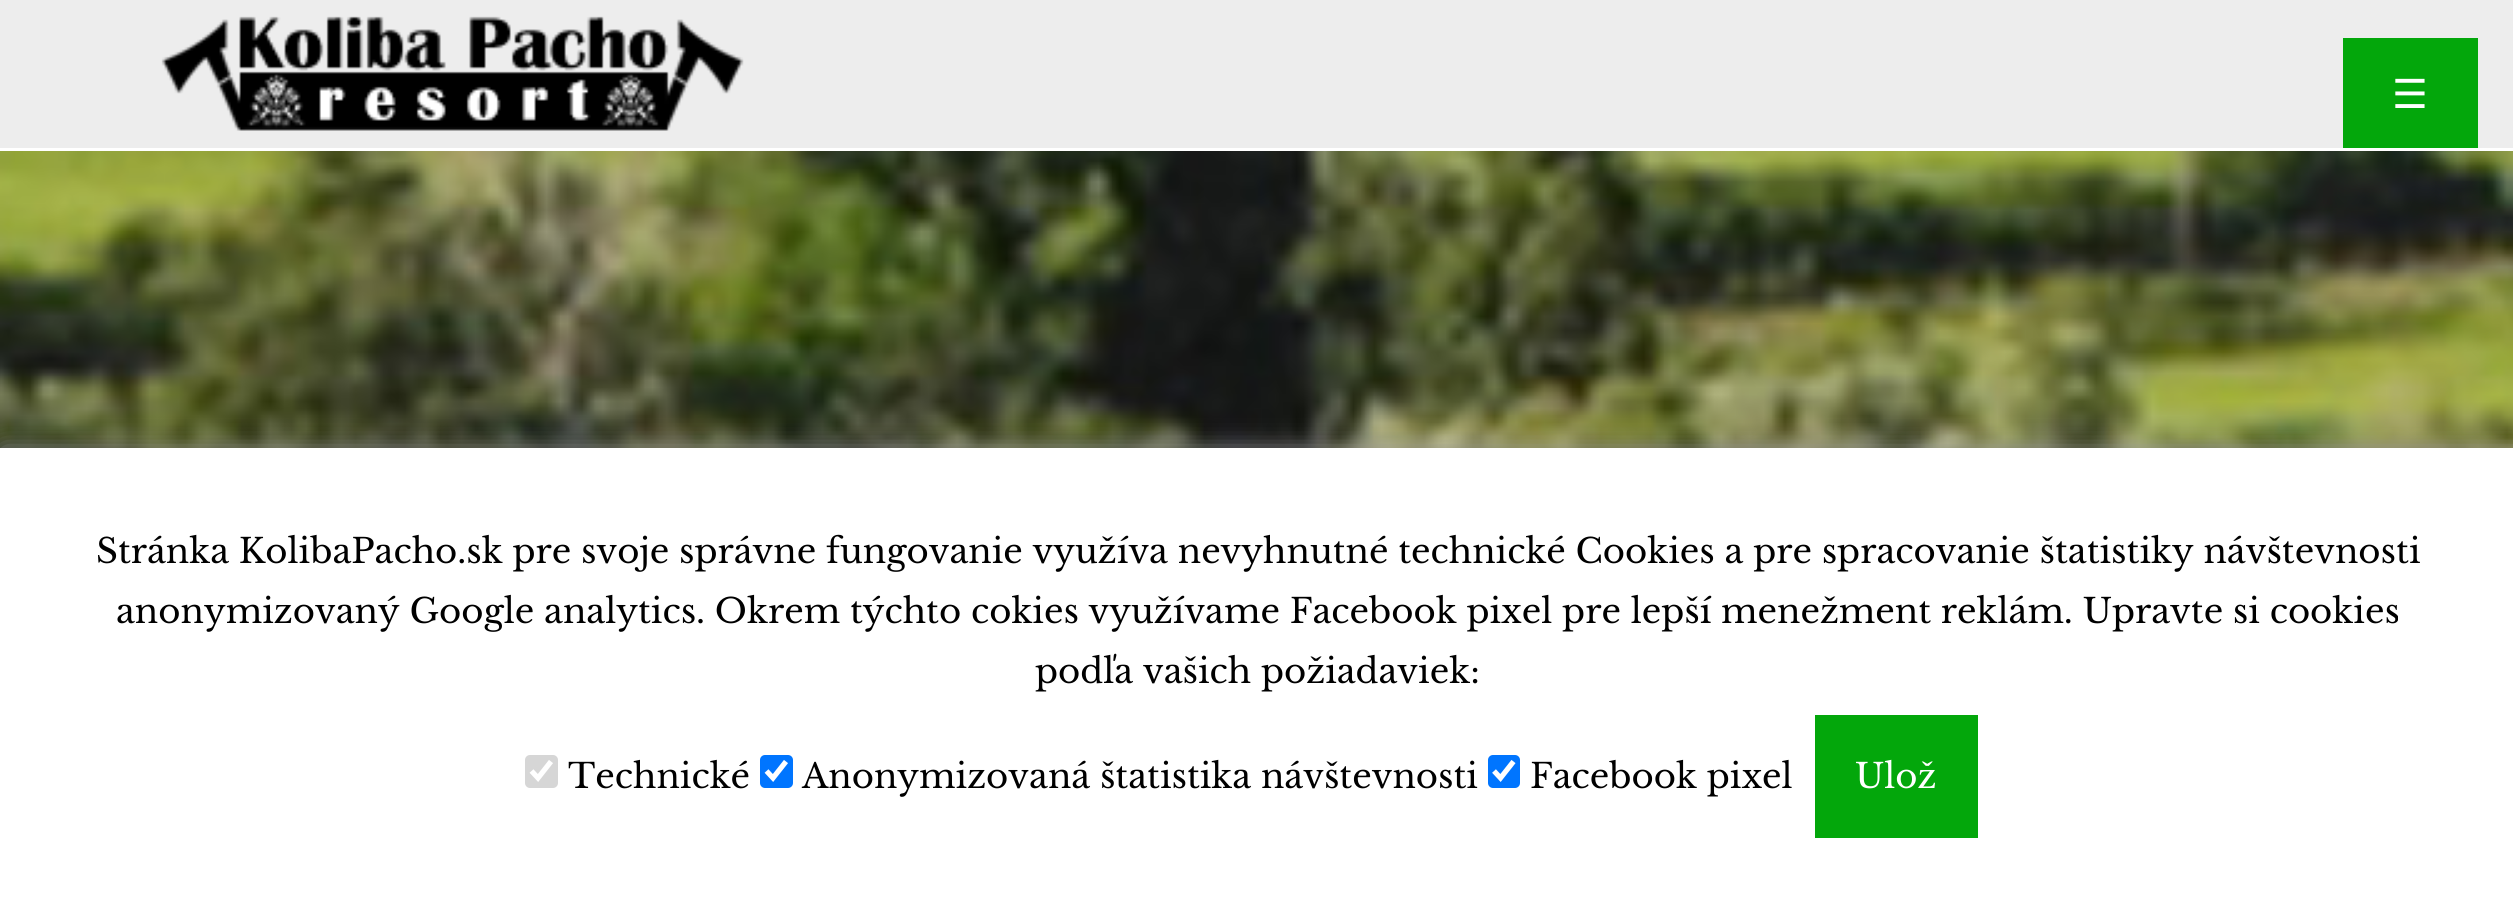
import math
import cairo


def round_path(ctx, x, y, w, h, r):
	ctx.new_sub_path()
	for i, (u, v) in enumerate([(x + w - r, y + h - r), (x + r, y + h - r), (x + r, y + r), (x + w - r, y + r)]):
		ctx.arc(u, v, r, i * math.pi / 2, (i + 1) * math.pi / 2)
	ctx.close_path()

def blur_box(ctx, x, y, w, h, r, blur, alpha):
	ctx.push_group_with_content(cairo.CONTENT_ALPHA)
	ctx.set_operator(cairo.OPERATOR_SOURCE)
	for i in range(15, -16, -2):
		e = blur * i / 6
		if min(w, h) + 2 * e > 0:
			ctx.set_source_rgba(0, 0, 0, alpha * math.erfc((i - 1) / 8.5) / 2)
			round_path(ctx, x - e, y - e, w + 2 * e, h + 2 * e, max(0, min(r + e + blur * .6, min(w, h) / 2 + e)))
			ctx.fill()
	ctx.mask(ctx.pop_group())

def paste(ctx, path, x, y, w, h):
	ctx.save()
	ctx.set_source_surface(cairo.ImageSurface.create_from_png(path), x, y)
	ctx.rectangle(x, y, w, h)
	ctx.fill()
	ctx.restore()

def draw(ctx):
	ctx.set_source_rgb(1, 1, 1)
	ctx.paint()
	ctx.set_source_rgb(0.929, 0.929, 0.929)
	ctx.rectangle(0, 0, 2513, 148)
	ctx.fill()
	paste(ctx, 'media/1.png', 161, 16, 583, 115)
	ctx.set_source_rgb(0.012, 0.655, 0.043)
	ctx.rectangle(2343, 38, 135, 110)
	ctx.fill()
	ctx.select_font_face('DejaVu Sans')
	ctx.set_font_size(40)
	ctx.set_source_rgb(1, 1, 1)
	ctx.move_to(2392, 108)
	ctx.show_text('☰')
	paste(ctx, 'media/2.png', 0, 151, 2513, 297)
	ctx.set_source_rgb(0.58, 0.58, 0.58)
	blur_box(ctx, 3, 450, 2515, 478, 0, 12.5, 1)
	ctx.set_source_rgb(1, 1, 1)
	ctx.rectangle(0, 448, 2513, 476)
	ctx.fill()
	ctx.select_font_face('Libre Baskerville')
	ctx.set_font_size(34)
	ctx.set_source_rgb(0, 0, 0)
	for x, y, s in [
		(96, 563, 'Stránka KolibaPacho.sk pre svoje správne fungovanie využíva nevyhnutné technické Cookies a pre spracovanie štatistiky návštevnosti'),
		(116, 623, 'anonymizovaný Google analytics. Okrem týchto cokies využívame Facebook pixel pre lepší menežment reklám. Upravte si cookies'),
		(1035, 683, 'podľa vašich požiadaviek:'),
	]:
		ctx.move_to(x, y)
		ctx.show_text(s)
	ctx.set_source_rgb(0.839, 0.839, 0.839)
	round_path(ctx, 525, 755, 33, 33, 5)
	ctx.fill()
	ctx.new_path()
	ctx.move_to(531.5, 771)
	ctx.line_to(538, 778)
	ctx.line_to(551, 761.5)
	ctx.set_source_rgb(1, 1, 1)
	ctx.set_line_width(5.2)
	ctx.stroke()
	ctx.set_source_rgb(0, 0, 0)
	ctx.move_to(568, 788)
	ctx.show_text('Technické')
	ctx.set_source_rgb(0, 0.459, 1)
	round_path(ctx, 760, 755, 33, 33, 5)
	ctx.fill()
	ctx.new_path()
	ctx.move_to(766.5, 771)
	ctx.line_to(773, 778)
	ctx.line_to(786, 761.5)
	ctx.set_source_rgb(1, 1, 1)
	ctx.stroke()
	ctx.set_source_rgb(0, 0, 0)
	ctx.move_to(802, 788)
	ctx.show_text('Anonymizovaná štatistika návštevnosti')
	ctx.set_source_rgb(0, 0.459, 1)
	round_path(ctx, 1488, 755, 32, 33, 5)
	ctx.fill()
	ctx.new_path()
	ctx.move_to(1494, 771)
	ctx.line_to(1500.5, 778)
	ctx.line_to(1513.5, 761.5)
	ctx.set_source_rgb(1, 1, 1)
	ctx.stroke()
	ctx.set_source_rgb(0, 0, 0)
	ctx.move_to(1530, 788)
	ctx.show_text('Facebook pixel')
	ctx.set_source_rgb(0.012, 0.655, 0.043)
	ctx.rectangle(1815, 715, 163, 123)
	ctx.fill()
	ctx.set_source_rgb(1, 1, 1)
	ctx.move_to(1855, 788)
	ctx.show_text('Ulož')


surface = cairo.ImageSurface(cairo.FORMAT_RGB24, 2513, 924)
ctx = cairo.Context(surface)
options = cairo.FontOptions()
options.set_hint_metrics(cairo.HINT_METRICS_OFF)
options.set_hint_style(cairo.HINT_STYLE_NONE)
ctx.set_font_options(options)
ctx.set_miter_limit(4)
draw(ctx)
surface.write_to_png('image.png')
